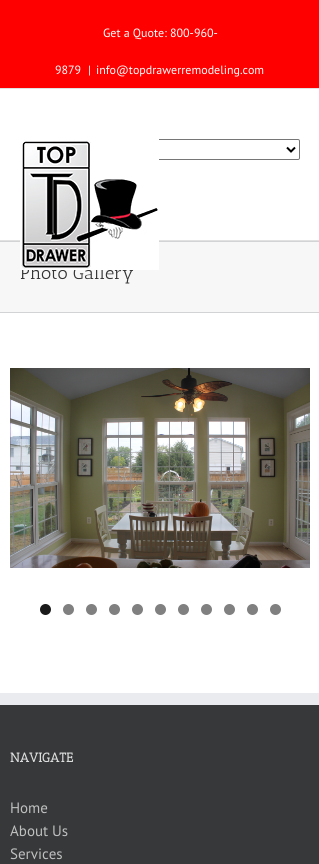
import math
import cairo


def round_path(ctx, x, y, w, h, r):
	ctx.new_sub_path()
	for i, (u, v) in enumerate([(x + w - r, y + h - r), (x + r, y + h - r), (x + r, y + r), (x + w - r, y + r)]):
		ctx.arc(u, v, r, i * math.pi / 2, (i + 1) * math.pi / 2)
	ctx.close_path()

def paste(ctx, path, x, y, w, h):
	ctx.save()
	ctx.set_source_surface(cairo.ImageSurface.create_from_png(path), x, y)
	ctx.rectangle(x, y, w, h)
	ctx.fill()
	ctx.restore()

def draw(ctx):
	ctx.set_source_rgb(1, 1, 1)
	ctx.paint()
	ctx.set_source_rgb(1, 0, 0)
	ctx.rectangle(0, 0, 319, 88)
	ctx.fill()
	ctx.set_source_rgb(0.882, 0.882, 0.882)
	ctx.rectangle(0, 88, 319, 1)
	ctx.fill()
	ctx.select_font_face('PT Sans')
	ctx.set_font_size(12)
	ctx.set_source_rgb(1, 1, 1)
	for x, y, s in [
		(103, 37, 'Get a Quote: 800-960-'),
		(55, 74, '9879'),
		(88, 74, '|'),
		(96, 74, 'info@topdrawerremodeling.com'),
	]:
		ctx.move_to(x, y)
		ctx.show_text(s)
	ctx.set_source_rgb(0.882, 0.882, 0.882)
	ctx.rectangle(0, 240, 319, 1)
	ctx.fill()
	round_path(ctx, 20.5, 139.5, 279, 20, 1.5)
	ctx.set_source_rgb(0.463, 0.463, 0.463)
	ctx.set_line_width(1)
	ctx.stroke()
	ctx.new_path()
	ctx.move_to(287, 147.5)
	ctx.line_to(291, 151.5)
	ctx.line_to(295, 147.5)
	ctx.set_source_rgb(0, 0, 0)
	ctx.set_line_width(2)
	ctx.stroke()
	ctx.set_source_rgb(0.965, 0.965, 0.965)
	ctx.rectangle(0, 242, 319, 70)
	ctx.fill()
	ctx.set_source_rgb(0.824, 0.827, 0.831)
	ctx.rectangle(0, 241, 319, 1)
	ctx.fill()
	ctx.select_font_face('Antic Slab')
	ctx.set_font_size(18)
	ctx.set_source_rgb(0.2, 0.2, 0.2)
	ctx.move_to(20, 279)
	ctx.show_text('Photo Gallery')
	paste(ctx, 'media/1.png', 20, 139, 139, 131)
	ctx.set_source_rgb(0.824, 0.827, 0.831)
	ctx.rectangle(0, 312, 319, 1)
	ctx.fill()
	paste(ctx, 'media/2.png', 10, 368, 300, 200)
	ctx.set_source_rgb(0.102, 0.102, 0.102)
	ctx.arc(45.5, 609.5, 5.5, 0, 2 * math.pi)
	ctx.fill()
	ctx.set_source_rgb(0.502, 0.502, 0.502)
	ctx.arc(68.5, 609.5, 5.5, 0, 2 * math.pi)
	ctx.fill()
	ctx.arc(91.5, 609.5, 5.5, 0, 2 * math.pi)
	ctx.fill()
	ctx.arc(114.5, 609.5, 5.5, 0, 2 * math.pi)
	ctx.fill()
	ctx.arc(137.5, 609.5, 5.5, 0, 2 * math.pi)
	ctx.fill()
	ctx.arc(160.5, 609.5, 5.5, 0, 2 * math.pi)
	ctx.fill()
	ctx.arc(183.5, 609.5, 5.5, 0, 2 * math.pi)
	ctx.fill()
	ctx.arc(206.5, 609.5, 5.5, 0, 2 * math.pi)
	ctx.fill()
	ctx.arc(229.5, 609.5, 5.5, 0, 2 * math.pi)
	ctx.fill()
	ctx.arc(252.5, 609.5, 5.5, 0, 2 * math.pi)
	ctx.fill()
	ctx.arc(275.5, 609.5, 5.5, 0, 2 * math.pi)
	ctx.fill()
	ctx.set_source_rgb(0.212, 0.22, 0.224)
	ctx.rectangle(0, 705, 319, 159)
	ctx.fill()
	ctx.set_source_rgb(0.914, 0.918, 0.933)
	ctx.rectangle(0, 693, 319, 12)
	ctx.fill()
	ctx.select_font_face('Antic Slab', cairo.FONT_SLANT_NORMAL, cairo.FONT_WEIGHT_BOLD)
	ctx.set_font_size(13)
	ctx.set_source_rgb(0.867, 0.867, 0.867)
	ctx.move_to(10, 762)
	ctx.show_text('NAVIGATE')
	ctx.select_font_face('PT Sans')
	ctx.set_font_size(15)
	ctx.set_source_rgb(0.749, 0.749, 0.749)
	for x, y, s in [
		(10, 813, 'Home'),
		(10, 836, 'About Us'),
		(10, 859, 'Services'),
	]:
		ctx.move_to(x, y)
		ctx.show_text(s)


surface = cairo.ImageSurface(cairo.FORMAT_RGB24, 319, 864)
ctx = cairo.Context(surface)
options = cairo.FontOptions()
options.set_hint_metrics(cairo.HINT_METRICS_OFF)
options.set_hint_style(cairo.HINT_STYLE_NONE)
ctx.set_font_options(options)
ctx.set_miter_limit(4)
draw(ctx)
surface.write_to_png('image.png')
